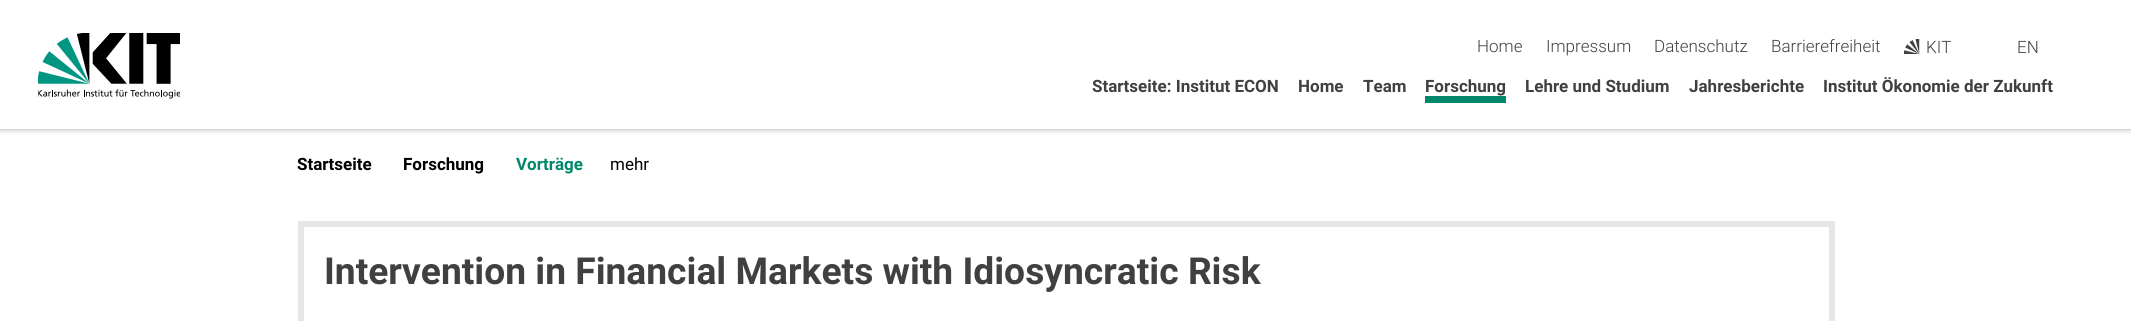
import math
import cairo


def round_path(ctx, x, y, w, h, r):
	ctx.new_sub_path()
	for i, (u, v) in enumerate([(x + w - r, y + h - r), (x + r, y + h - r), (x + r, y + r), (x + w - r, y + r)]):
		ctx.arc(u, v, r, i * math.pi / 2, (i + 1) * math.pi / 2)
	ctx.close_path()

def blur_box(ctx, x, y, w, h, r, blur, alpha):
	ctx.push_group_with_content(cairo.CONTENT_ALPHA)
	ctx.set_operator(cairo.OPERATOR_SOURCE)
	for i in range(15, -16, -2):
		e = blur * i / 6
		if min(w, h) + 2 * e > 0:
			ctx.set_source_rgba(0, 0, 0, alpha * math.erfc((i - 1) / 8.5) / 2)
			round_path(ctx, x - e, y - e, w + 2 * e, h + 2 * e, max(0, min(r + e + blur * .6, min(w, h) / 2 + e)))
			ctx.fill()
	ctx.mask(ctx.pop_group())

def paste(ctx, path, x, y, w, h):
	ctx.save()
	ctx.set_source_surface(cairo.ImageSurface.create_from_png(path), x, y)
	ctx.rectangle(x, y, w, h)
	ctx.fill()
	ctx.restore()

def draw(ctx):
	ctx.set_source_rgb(1, 1, 1)
	ctx.paint()
	ctx.set_source_rgb(0.251, 0.251, 0.251)
	blur_box(ctx, 0, 0, 2131, 129, 0, 3, 0.5)
	ctx.set_source_rgb(1, 1, 1)
	ctx.rectangle(0, 0, 2131, 129)
	ctx.fill()
	paste(ctx, 'media/1.png', 38, 33, 142, 66)
	ctx.select_font_face('Roboto Light')
	ctx.set_font_size(17)
	ctx.set_source_rgb(0.251, 0.251, 0.251)
	for x, y, s in [
		(1477, 52, 'Home'),
		(1546, 52, 'Impressum'),
		(1654, 52, 'Datenschutz'),
		(1771, 52, 'Barrierefreiheit'),
	]:
		ctx.move_to(x, y)
		ctx.show_text(s)
	paste(ctx, 'media/2.png', 1904, 39, 16, 15)
	ctx.move_to(1926, 53)
	ctx.show_text('KIT')
	ctx.move_to(2017, 53)
	ctx.show_text('EN')
	ctx.select_font_face('Roboto', cairo.FONT_SLANT_NORMAL, cairo.FONT_WEIGHT_BOLD)
	for x, y, s in [
		(1092, 92, 'Startseite: Institut ECON'),
		(1298, 92, 'Home'),
		(1363, 92, 'Team'),
		(1425, 92, 'Forschung'),
	]:
		ctx.move_to(x, y)
		ctx.show_text(s)
	ctx.set_source_rgb(0, 0.529, 0.424)
	ctx.rectangle(1425, 96, 81, 7)
	ctx.fill()
	ctx.set_source_rgb(0.251, 0.251, 0.251)
	for x, y, s in [
		(1525, 92, 'Lehre und Studium'),
		(1689, 92, 'Jahresberichte'),
		(1823, 92, 'Institut Ökonomie der Zukunft'),
	]:
		ctx.move_to(x, y)
		ctx.show_text(s)
	ctx.set_source_rgb(0, 0, 0)
	ctx.move_to(297, 170)
	ctx.show_text('Startseite')
	ctx.move_to(403, 170)
	ctx.show_text('Forschung')
	ctx.set_source_rgb(0, 0.529, 0.424)
	ctx.move_to(516, 170)
	ctx.show_text('Vorträge')
	ctx.select_font_face('Roboto')
	ctx.set_source_rgb(0, 0, 0)
	ctx.move_to(610, 170)
	ctx.show_text('mehr')
	ctx.rectangle(301, 224, 1531, 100)
	ctx.set_source_rgb(0.902, 0.902, 0.902)
	ctx.set_line_width(6)
	ctx.stroke()
	ctx.select_font_face('Roboto', cairo.FONT_SLANT_NORMAL, cairo.FONT_WEIGHT_BOLD)
	ctx.set_font_size(37.2)
	ctx.set_source_rgb(0.251, 0.251, 0.251)
	ctx.move_to(324, 284)
	ctx.show_text('Intervention in Financial Markets with Idiosyncratic Risk')


surface = cairo.ImageSurface(cairo.FORMAT_RGB24, 2131, 321)
ctx = cairo.Context(surface)
options = cairo.FontOptions()
options.set_hint_metrics(cairo.HINT_METRICS_OFF)
options.set_hint_style(cairo.HINT_STYLE_NONE)
ctx.set_font_options(options)
ctx.set_miter_limit(4)
draw(ctx)
surface.write_to_png('image.png')
